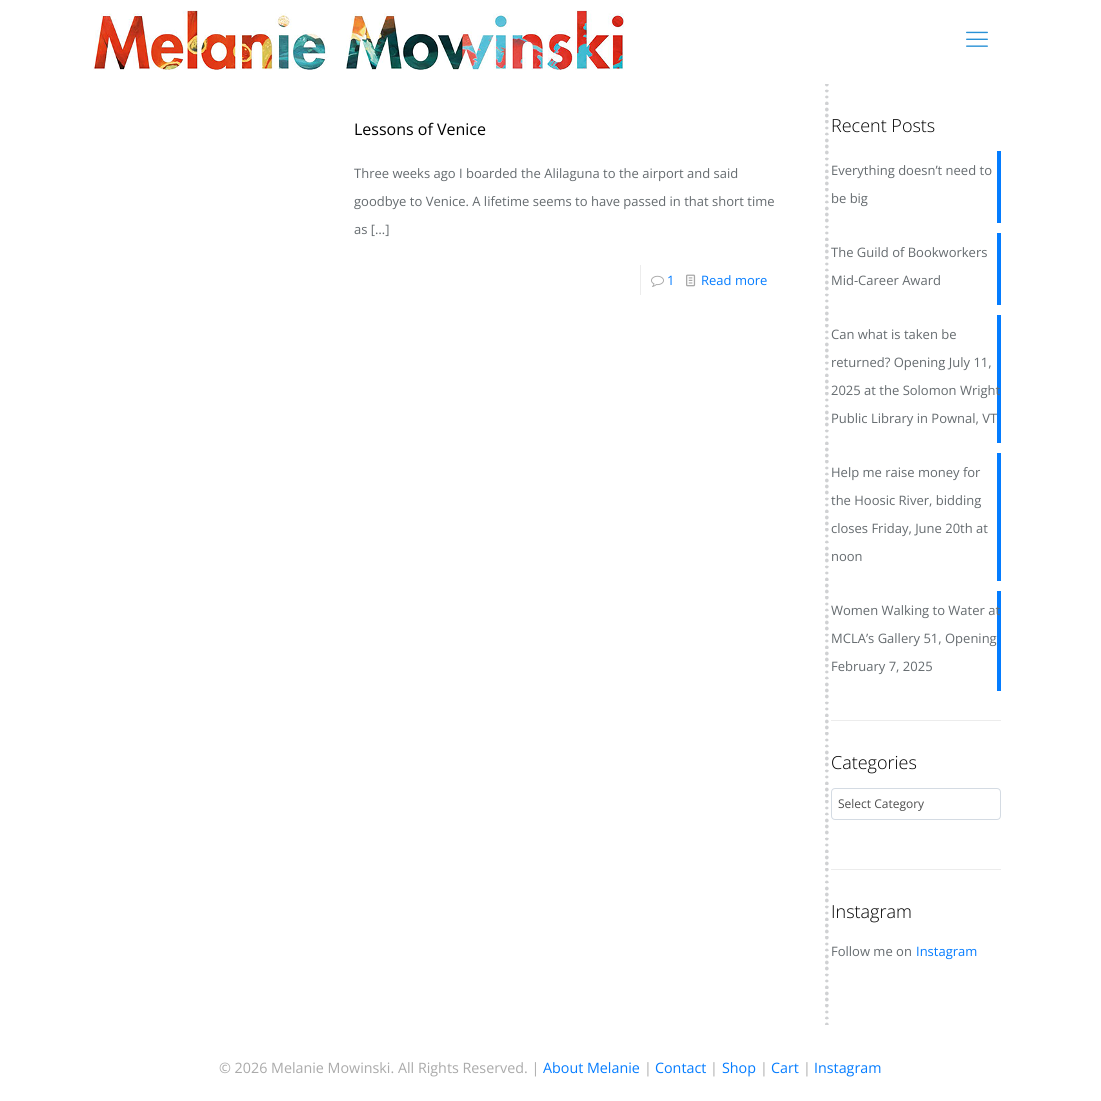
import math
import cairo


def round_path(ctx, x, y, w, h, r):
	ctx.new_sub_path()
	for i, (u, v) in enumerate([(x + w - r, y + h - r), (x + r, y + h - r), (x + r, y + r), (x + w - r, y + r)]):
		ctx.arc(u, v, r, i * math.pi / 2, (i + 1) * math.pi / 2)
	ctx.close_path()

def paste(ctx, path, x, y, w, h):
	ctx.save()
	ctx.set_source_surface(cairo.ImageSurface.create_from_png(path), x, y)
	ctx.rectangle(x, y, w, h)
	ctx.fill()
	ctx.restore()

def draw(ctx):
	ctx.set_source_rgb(1, 1, 1)
	ctx.paint()
	paste(ctx, 'media/1.png', 93, 10, 531, 60)
	paste(ctx, 'media/2.png', 966, 31, 22, 16)
	ctx.select_font_face('Open Sans')
	ctx.set_font_size(16)
	ctx.set_source_rgb(0, 0, 0)
	ctx.move_to(354, 135)
	ctx.show_text('Lessons of Venice')
	ctx.set_font_size(13)
	ctx.set_source_rgb(0.396, 0.42, 0.435)
	for x, y, s in [
		(354, 178, 'Three weeks ago I boarded the Alilaguna to the airport and said'),
		(354, 206, 'goodbye to Venice. A lifetime seems to have passed in that short time'),
		(354, 234, 'as […]'),
	]:
		ctx.move_to(x, y)
		ctx.show_text(s)
	ctx.set_source_rgb(0.922, 0.922, 0.922)
	ctx.rectangle(640, 265, 1, 30)
	ctx.fill()
	paste(ctx, 'media/3.png', 651, 275, 13, 12)
	ctx.set_source_rgb(0.016, 0.486, 1)
	ctx.move_to(667, 285)
	ctx.show_text('1')
	paste(ctx, 'media/4.png', 686, 274, 10, 13)
	ctx.move_to(701, 285)
	ctx.show_text('Read more')
	paste(ctx, 'media/5.png', 825, 84, 4, 941)
	ctx.select_font_face('Open Sans Light')
	ctx.set_font_size(18)
	ctx.set_source_rgb(0, 0, 0)
	ctx.move_to(831, 132)
	ctx.show_text('Recent Posts')
	ctx.select_font_face('Open Sans')
	ctx.set_font_size(13)
	ctx.set_source_rgb(0.396, 0.42, 0.435)
	ctx.move_to(831, 175)
	ctx.show_text('Everything doesn’t need to')
	ctx.move_to(831, 203)
	ctx.show_text('be big')
	ctx.set_source_rgb(0.016, 0.486, 1)
	ctx.rectangle(997, 151, 4, 72)
	ctx.fill()
	ctx.set_source_rgb(0.396, 0.42, 0.435)
	ctx.move_to(831, 257)
	ctx.show_text('The Guild of Bookworkers')
	ctx.move_to(831, 285)
	ctx.show_text('Mid-Career Award')
	ctx.set_source_rgb(0.016, 0.486, 1)
	ctx.rectangle(997, 233, 4, 72)
	ctx.fill()
	ctx.rectangle(997, 315, 4, 128)
	ctx.fill()
	ctx.set_source_rgb(0.396, 0.42, 0.435)
	for x, y, s in [
		(831, 339, 'Can what is taken be'),
		(831, 367, 'returned? Opening July 11,'),
		(831, 395, '2025 at the Solomon Wright'),
		(831, 423, 'Public Library in Pownal, VT'),
		(831, 477, 'Help me raise money for'),
		(831, 505, 'the Hoosic River, bidding'),
		(831, 533, 'closes Friday, June 20th at'),
		(831, 561, 'noon'),
	]:
		ctx.move_to(x, y)
		ctx.show_text(s)
	ctx.set_source_rgb(0.016, 0.486, 1)
	ctx.rectangle(997, 453, 4, 128)
	ctx.fill()
	ctx.rectangle(997, 591, 4, 100)
	ctx.fill()
	ctx.set_source_rgb(0.396, 0.42, 0.435)
	for x, y, s in [
		(831, 615, 'Women Walking to Water at'),
		(831, 643, 'MCLA’s Gallery 51, Opening'),
		(831, 671, 'February 7, 2025'),
	]:
		ctx.move_to(x, y)
		ctx.show_text(s)
	ctx.set_source_rgb(0.922, 0.922, 0.922)
	ctx.rectangle(831, 720, 170, 1)
	ctx.fill()
	ctx.select_font_face('Open Sans Light')
	ctx.set_font_size(18)
	ctx.set_source_rgb(0, 0, 0)
	ctx.move_to(831, 769)
	ctx.show_text('Categories')
	round_path(ctx, 831.5, 788.5, 169, 31, 3.5)
	ctx.set_source_rgb(0.831, 0.859, 0.89)
	ctx.set_line_width(1)
	ctx.stroke()
	ctx.select_font_face('Open Sans')
	ctx.set_font_size(12)
	ctx.set_source_rgb(0.306, 0.306, 0.306)
	ctx.move_to(838, 808)
	ctx.show_text('Select Category')
	ctx.set_source_rgb(0.922, 0.922, 0.922)
	ctx.rectangle(831, 869, 170, 1)
	ctx.fill()
	ctx.select_font_face('Open Sans Light')
	ctx.set_font_size(18)
	ctx.set_source_rgb(0, 0, 0)
	ctx.move_to(831, 918)
	ctx.show_text('Instagram')
	ctx.select_font_face('Open Sans')
	ctx.set_font_size(13)
	ctx.set_source_rgb(0.396, 0.42, 0.435)
	ctx.move_to(831, 956)
	ctx.show_text('Follow me on')
	ctx.set_source_rgb(0.016, 0.486, 1)
	ctx.move_to(916, 956)
	ctx.show_text('Instagram')
	ctx.set_font_size(14.3)
	ctx.set_source_rgb(0.667, 0.667, 0.667)
	ctx.move_to(219, 1073)
	ctx.show_text('© 2026 Melanie Mowinski. All Rights Reserved. |')
	ctx.set_source_rgb(0.016, 0.486, 1)
	ctx.move_to(543, 1073)
	ctx.show_text('About Melanie')
	ctx.set_source_rgb(0.667, 0.667, 0.667)
	ctx.move_to(644, 1073)
	ctx.show_text('|')
	ctx.set_source_rgb(0.016, 0.486, 1)
	ctx.move_to(655, 1073)
	ctx.show_text('Contact')
	ctx.set_source_rgb(0.667, 0.667, 0.667)
	ctx.move_to(710, 1073)
	ctx.show_text('|')
	ctx.set_source_rgb(0.016, 0.486, 1)
	ctx.move_to(722, 1073)
	ctx.show_text('Shop')
	ctx.set_source_rgb(0.667, 0.667, 0.667)
	ctx.move_to(760, 1073)
	ctx.show_text('|')
	ctx.set_source_rgb(0.016, 0.486, 1)
	ctx.move_to(771, 1073)
	ctx.show_text('Cart')
	ctx.set_source_rgb(0.667, 0.667, 0.667)
	ctx.move_to(803, 1073)
	ctx.show_text('|')
	ctx.set_source_rgb(0.016, 0.486, 1)
	ctx.move_to(814, 1073)
	ctx.show_text('Instagram')


surface = cairo.ImageSurface(cairo.FORMAT_RGB24, 1101, 1101)
ctx = cairo.Context(surface)
options = cairo.FontOptions()
options.set_hint_metrics(cairo.HINT_METRICS_OFF)
options.set_hint_style(cairo.HINT_STYLE_NONE)
ctx.set_font_options(options)
ctx.set_miter_limit(4)
draw(ctx)
surface.write_to_png('image.png')
